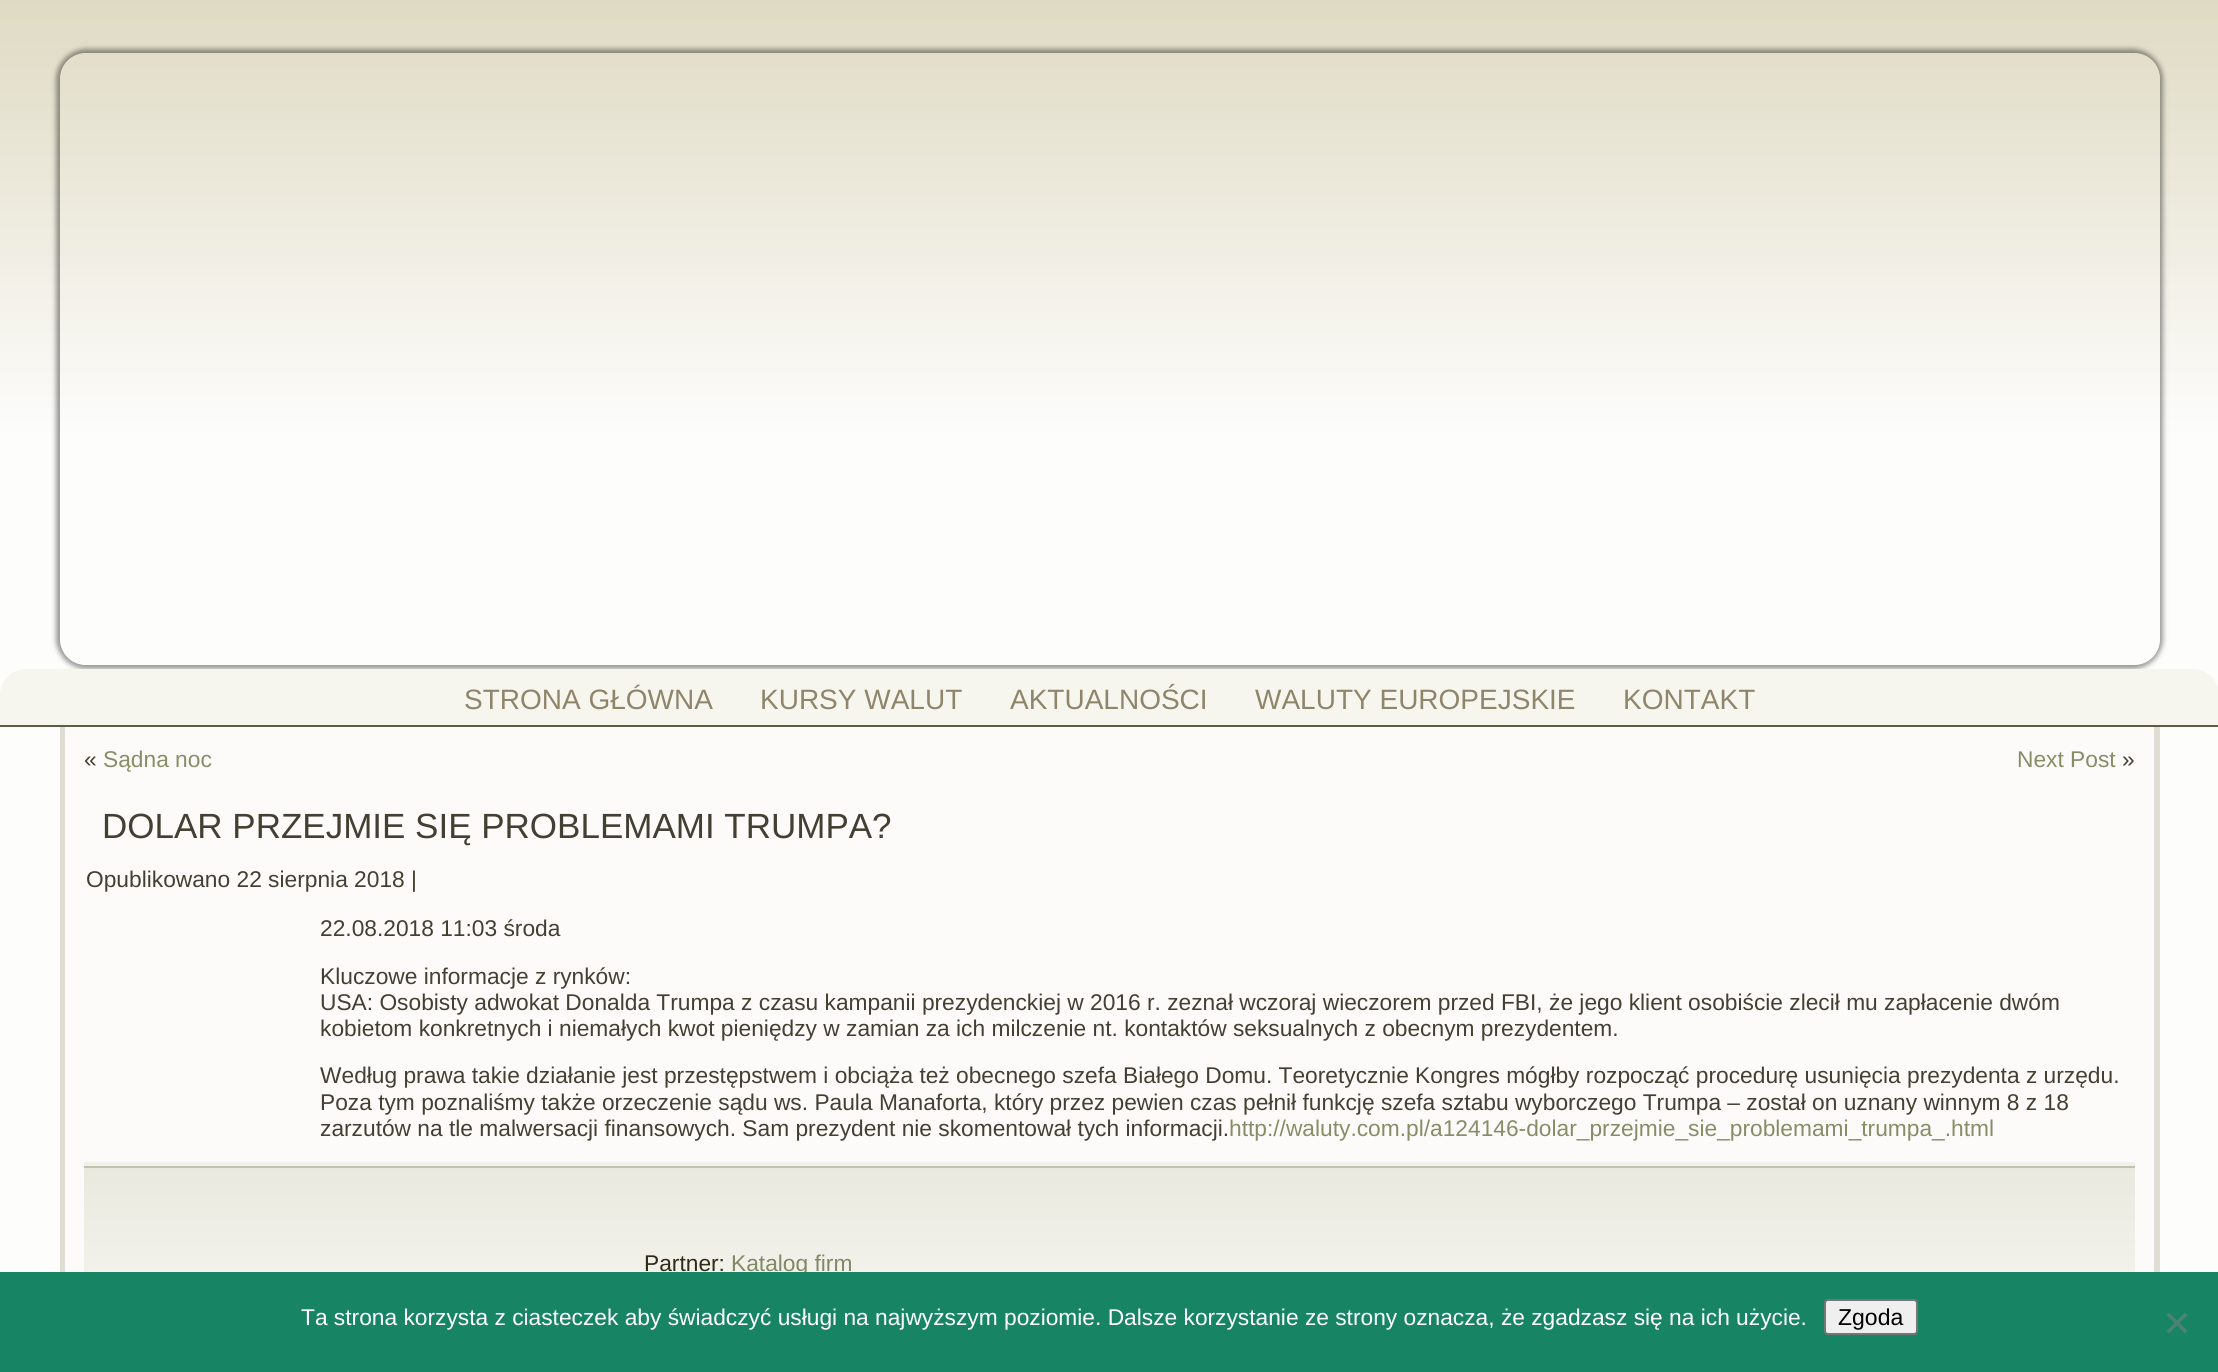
import math
import cairo


def round_path(ctx, x, y, w, h, r):
	ctx.new_sub_path()
	for i, (u, v) in enumerate([(x + w - r, y + h - r), (x + r, y + h - r), (x + r, y + r), (x + w - r, y + r)]):
		ctx.arc(u, v, r, i * math.pi / 2, (i + 1) * math.pi / 2)
	ctx.close_path()

def blur_box(ctx, x, y, w, h, r, blur, alpha):
	ctx.push_group_with_content(cairo.CONTENT_ALPHA)
	ctx.set_operator(cairo.OPERATOR_SOURCE)
	for i in range(15, -16, -2):
		e = blur * i / 6
		if min(w, h) + 2 * e > 0:
			ctx.set_source_rgba(0, 0, 0, alpha * math.erfc((i - 1) / 8.5) / 2)
			round_path(ctx, x - e, y - e, w + 2 * e, h + 2 * e, max(0, min(r + e + blur * .6, min(w, h) / 2 + e)))
			ctx.fill()
	ctx.mask(ctx.pop_group())

def draw(ctx):
	ctx.set_source_rgb(1, 1, 1)
	ctx.paint()
	gradient = cairo.LinearGradient(1110, 0, 1110, 1372)
	gradient.add_color_stop_rgba(0, 0.875, 0.855, 0.765, 1)
	gradient.add_color_stop_rgba(0.32, 0.992, 0.992, 0.988, 1)
	ctx.set_source(gradient)
	ctx.rectangle(0, 0, 2218, 1272)
	ctx.fill()
	ctx.save()
	ctx.set_fill_rule(cairo.FILL_RULE_EVEN_ODD)
	ctx.new_path()
	ctx.move_to(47, 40)
	ctx.line_to(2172, 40)
	ctx.line_to(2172, 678)
	ctx.line_to(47, 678)
	ctx.close_path()
	ctx.move_to(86, 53)
	ctx.line_to(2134, 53)
	ctx.curve_to(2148.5, 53, 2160, 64.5, 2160, 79)
	ctx.line_to(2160, 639)
	ctx.curve_to(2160, 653.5, 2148.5, 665, 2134, 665)
	ctx.line_to(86, 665)
	ctx.curve_to(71.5, 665, 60, 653.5, 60, 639)
	ctx.line_to(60, 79)
	ctx.curve_to(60, 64.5, 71.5, 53, 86, 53)
	ctx.close_path()
	ctx.clip()
	ctx.set_source_rgb(0, 0, 0)
	blur_box(ctx, 56, 49, 2107, 620, 30, 2.5, 0.4)
	ctx.restore()
	ctx.set_source_rgb(0.965, 0.961, 0.933)
	ctx.new_path()
	ctx.move_to(26, 669)
	ctx.line_to(2193, 669)
	ctx.curve_to(2207.5, 669, 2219, 680.5, 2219, 695)
	ctx.line_to(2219, 726)
	ctx.line_to(0, 726)
	ctx.line_to(0, 695)
	ctx.curve_to(0, 680.5, 11.5, 669, 26, 669)
	ctx.close_path()
	ctx.fill()
	ctx.set_source_rgb(0.988, 0.984, 0.973)
	ctx.rectangle(65, 727, 2089, 545)
	ctx.fill()
	ctx.set_source_rgb(0.878, 0.867, 0.831)
	ctx.set_fill_rule(cairo.FILL_RULE_EVEN_ODD)
	ctx.new_path()
	ctx.move_to(60, 726)
	ctx.line_to(2160, 726)
	ctx.line_to(2160, 1340)
	ctx.curve_to(2160, 1355, 2148, 1367, 2133, 1367)
	ctx.line_to(86, 1367)
	ctx.curve_to(71, 1367, 60, 1355, 60, 1340)
	ctx.close_path()
	ctx.move_to(65, 726)
	ctx.line_to(2154, 726)
	ctx.line_to(2154, 1340)
	ctx.curve_to(2154, 1352, 2145, 1362, 2133, 1362)
	ctx.line_to(86, 1362)
	ctx.curve_to(74, 1362, 65, 1352, 65, 1340)
	ctx.close_path()
	ctx.fill()
	ctx.set_source_rgb(0.357, 0.369, 0.271)
	ctx.rectangle(0, 725, 2218, 2)
	ctx.fill()
	ctx.select_font_face('Liberation Sans')
	ctx.set_font_size(28)
	ctx.set_source_rgb(0.561, 0.522, 0.42)
	for x, y, s in [
		(464, 709, 'STRONA GŁÓWNA'),
		(760, 709, 'KURSY WALUT'),
		(1010, 709, 'AKTUALNOŚCI'),
		(1255, 709, 'WALUTY EUROPEJSKIE'),
		(1623, 709, 'KONTAKT'),
	]:
		ctx.move_to(x, y)
		ctx.show_text(s)
	ctx.set_font_size(22.75)
	ctx.set_source_rgb(0.263, 0.247, 0.196)
	ctx.move_to(84, 767)
	ctx.show_text('«')
	ctx.set_source_rgb(0.533, 0.553, 0.404)
	ctx.move_to(103, 767)
	ctx.show_text('Sądna noc')
	ctx.move_to(2017, 767)
	ctx.show_text('Next Post')
	ctx.set_source_rgb(0.263, 0.247, 0.196)
	ctx.move_to(2122, 767)
	ctx.show_text('»')
	ctx.set_font_size(35)
	ctx.move_to(102, 838)
	ctx.show_text('DOLAR PRZEJMIE SIĘ PROBLEMAMI TRUMPA?')
	ctx.set_font_size(22.75)
	for x, y, s in [
		(86, 887, 'Opublikowano 22 sierpnia 2018 |'),
		(320, 936, '22.08.2018 11:03 środa'),
		(320, 984, 'Kluczowe informacje z rynków:'),
		(320, 1010, 'USA: Osobisty adwokat Donalda Trumpa z czasu kampanii prezydenckiej w 2016 r. zeznał wczoraj wieczorem przed FBI, że jego klient osobiście zlecił mu zapłacenie dwóm'),
		(320, 1036, 'kobietom konkretnych i niemałych kwot pieniędzy w zamian za ich milczenie nt. kontaktów seksualnych z obecnym prezydentem.'),
		(320, 1083, 'Według prawa takie działanie jest przestępstwem i obciąża też obecnego szefa Białego Domu. Teoretycznie Kongres mógłby rozpocząć procedurę usunięcia prezydenta z urzędu.'),
		(320, 1110, 'Poza tym poznaliśmy także orzeczenie sądu ws. Paula Manaforta, który przez pewien czas pełnił funkcję szefa sztabu wyborczego Trumpa – został on uznany winnym 8 z 18'),
		(320, 1136, 'zarzutów na tle malwersacji finansowych. Sam prezydent nie skomentował tych informacji.'),
	]:
		ctx.move_to(x, y)
		ctx.show_text(s)
	ctx.set_source_rgb(0.533, 0.553, 0.404)
	ctx.move_to(1229, 1136)
	ctx.show_text('http://waluty.com.pl/a124146-dolar_przejmie_sie_problemami_trumpa_.html')
	ctx.set_source_rgb(0.949, 0.941, 0.925)
	ctx.rectangle(84, 1162, 2051, 4)
	ctx.fill()
	gradient = cairo.LinearGradient(1110, 1165, 1110, 1342)
	gradient.add_color_stop_rgba(0, 0.914, 0.914, 0.871, 1)
	gradient.add_color_stop_rgba(0.9, 0.965, 0.965, 0.949, 1)
	gradient.add_color_stop_rgba(0.9, 0.937, 0.941, 0.906, 1)
	gradient.add_color_stop_rgba(1, 0.937, 0.941, 0.906, 1)
	ctx.set_source(gradient)
	ctx.rectangle(84, 1168, 2051, 104)
	ctx.fill()
	ctx.set_source_rgb(0.749, 0.765, 0.675)
	ctx.rectangle(84, 1166, 2051, 2)
	ctx.fill()
	ctx.set_source_rgb(0.192, 0.173, 0.09)
	ctx.move_to(644, 1271)
	ctx.show_text('Partner:')
	ctx.set_source_rgb(0.51, 0.533, 0.388)
	ctx.move_to(731, 1271)
	ctx.show_text('Katalog firm')
	ctx.set_source_rgb(0.09, 0.518, 0.388)
	ctx.rectangle(0, 1272, 2218, 100)
	ctx.fill()
	ctx.set_source_rgb(1, 1, 1)
	ctx.move_to(301, 1325)
	ctx.show_text('Ta strona korzysta z ciasteczek aby świadczyć usługi na najwyższym poziomie. Dalsze korzystanie ze strony oznacza, że zgadzasz się na ich użycie.')
	ctx.set_source_rgb(0.937, 0.937, 0.937)
	round_path(ctx, 1825, 1300, 92, 34, 3)
	ctx.fill_preserve()
	ctx.set_source_rgb(0.463, 0.463, 0.463)
	ctx.stroke()
	ctx.set_font_size(23)
	ctx.set_source_rgb(0, 0, 0)
	ctx.move_to(1838, 1325)
	ctx.show_text('Zgoda')
	ctx.set_source_rgb(0.298, 0.51, 0.447)
	ctx.set_fill_rule(cairo.FILL_RULE_WINDING)
	ctx.new_path()
	ctx.move_to(2185, 1312.5)
	ctx.line_to(2187.5, 1315)
	ctx.line_to(2169, 1333.5)
	ctx.line_to(2166.5, 1331)
	ctx.close_path()
	ctx.fill()
	ctx.new_path()
	ctx.move_to(2166.5, 1315)
	ctx.line_to(2169, 1312.5)
	ctx.line_to(2187.5, 1331)
	ctx.line_to(2185, 1333.5)
	ctx.close_path()
	ctx.fill()


surface = cairo.ImageSurface(cairo.FORMAT_RGB24, 2218, 1372)
ctx = cairo.Context(surface)
options = cairo.FontOptions()
options.set_hint_metrics(cairo.HINT_METRICS_OFF)
options.set_hint_style(cairo.HINT_STYLE_NONE)
ctx.set_font_options(options)
ctx.set_miter_limit(4)
draw(ctx)
surface.write_to_png('image.png')
